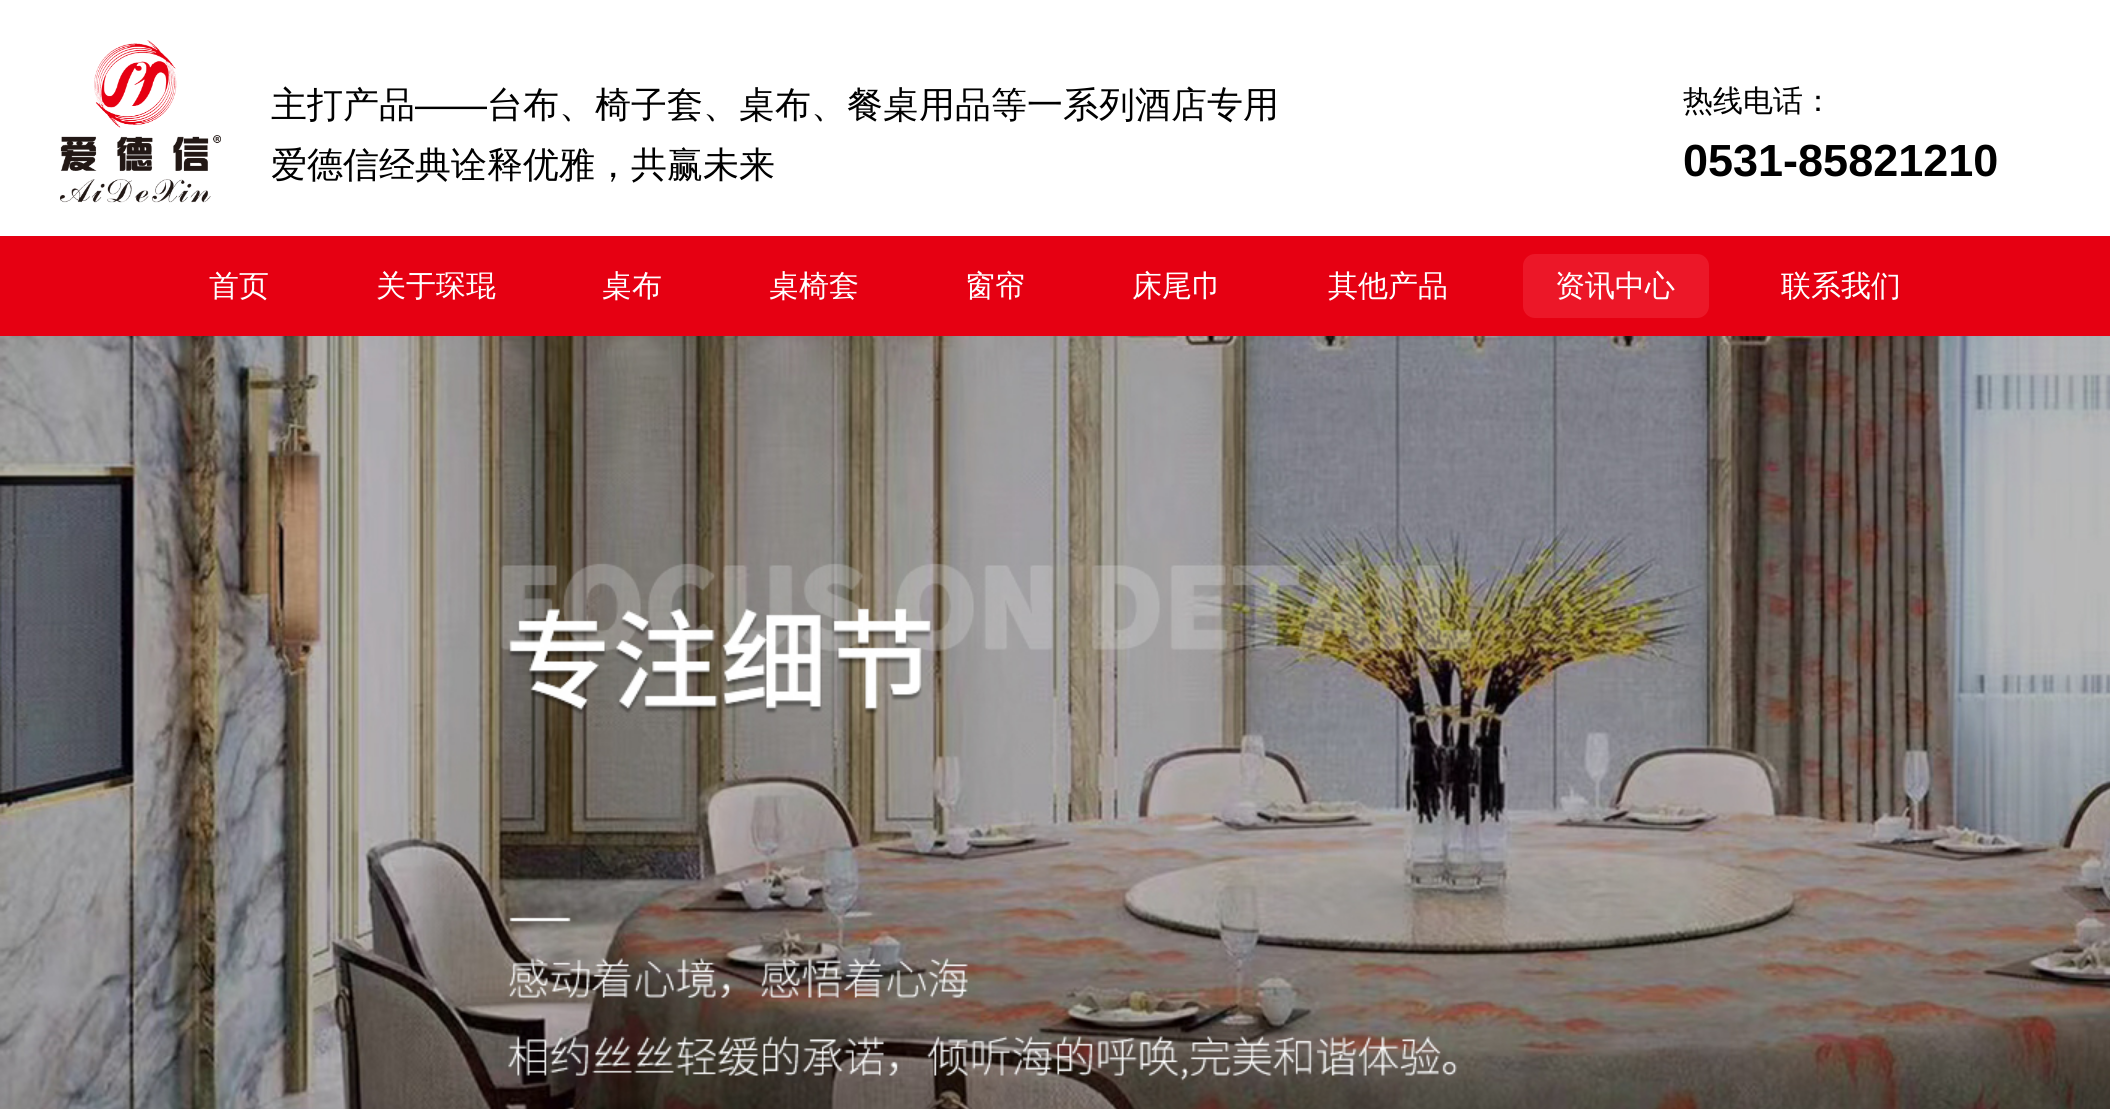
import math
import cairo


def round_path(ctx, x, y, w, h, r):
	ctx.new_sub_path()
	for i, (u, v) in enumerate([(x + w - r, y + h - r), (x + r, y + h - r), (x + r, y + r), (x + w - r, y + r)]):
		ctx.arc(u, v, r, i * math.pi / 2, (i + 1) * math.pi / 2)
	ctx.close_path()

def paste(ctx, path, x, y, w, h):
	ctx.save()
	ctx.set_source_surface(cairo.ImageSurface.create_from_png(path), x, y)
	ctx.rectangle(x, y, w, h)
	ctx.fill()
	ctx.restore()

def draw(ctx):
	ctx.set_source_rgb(1, 1, 1)
	ctx.paint()
	paste(ctx, 'media/1.png', 60, 40, 161, 163)
	ctx.select_font_face('WenQuanYi Zen Hei Medium')
	ctx.set_font_size(36)
	ctx.set_source_rgb(0, 0, 0)
	ctx.move_to(271, 117)
	ctx.show_text('主打产品')
	ctx.select_font_face('Liberation Sans')
	ctx.move_to(415, 117)
	ctx.show_text('——')
	ctx.select_font_face('WenQuanYi Zen Hei Medium')
	ctx.move_to(487, 117)
	ctx.show_text('台布、椅子套、桌布、餐桌用品等一系列酒店专用')
	ctx.move_to(271, 177)
	ctx.show_text('爱德信经典诠释优雅，共赢未来')
	ctx.set_font_size(30)
	ctx.move_to(1683, 111)
	ctx.show_text('热线电话：')
	ctx.select_font_face('Liberation Sans', cairo.FONT_SLANT_NORMAL, cairo.FONT_WEIGHT_BOLD)
	ctx.set_font_size(45)
	ctx.move_to(1683, 176)
	ctx.show_text('0531-85821210')
	ctx.set_source_rgb(0.902, 0, 0.071)
	ctx.rectangle(0, 236, 2110, 100)
	ctx.fill()
	ctx.select_font_face('WenQuanYi Zen Hei Medium')
	ctx.set_font_size(30)
	ctx.set_source_rgb(1, 1, 1)
	for x, y, s in [
		(209, 296, '首页'),
		(376, 296, '关于琛琨'),
		(602, 296, '桌布'),
		(769, 296, '桌椅套'),
		(965, 296, '窗帘'),
		(1132, 296, '床尾巾'),
		(1328, 296, '其他产品'),
	]:
		ctx.move_to(x, y)
		ctx.show_text(s)
	ctx.set_source_rgb(0.925, 0.09, 0.157)
	round_path(ctx, 1523, 254, 186, 64, 12)
	ctx.fill()
	ctx.set_source_rgb(1, 1, 1)
	ctx.move_to(1555, 296)
	ctx.show_text('资讯中心')
	ctx.move_to(1781, 296)
	ctx.show_text('联系我们')
	paste(ctx, 'media/2.png', 0, 336, 2110, 773)


surface = cairo.ImageSurface(cairo.FORMAT_RGB24, 2110, 1109)
ctx = cairo.Context(surface)
options = cairo.FontOptions()
options.set_hint_metrics(cairo.HINT_METRICS_OFF)
options.set_hint_style(cairo.HINT_STYLE_NONE)
ctx.set_font_options(options)
ctx.set_miter_limit(4)
draw(ctx)
surface.write_to_png('image.png')
